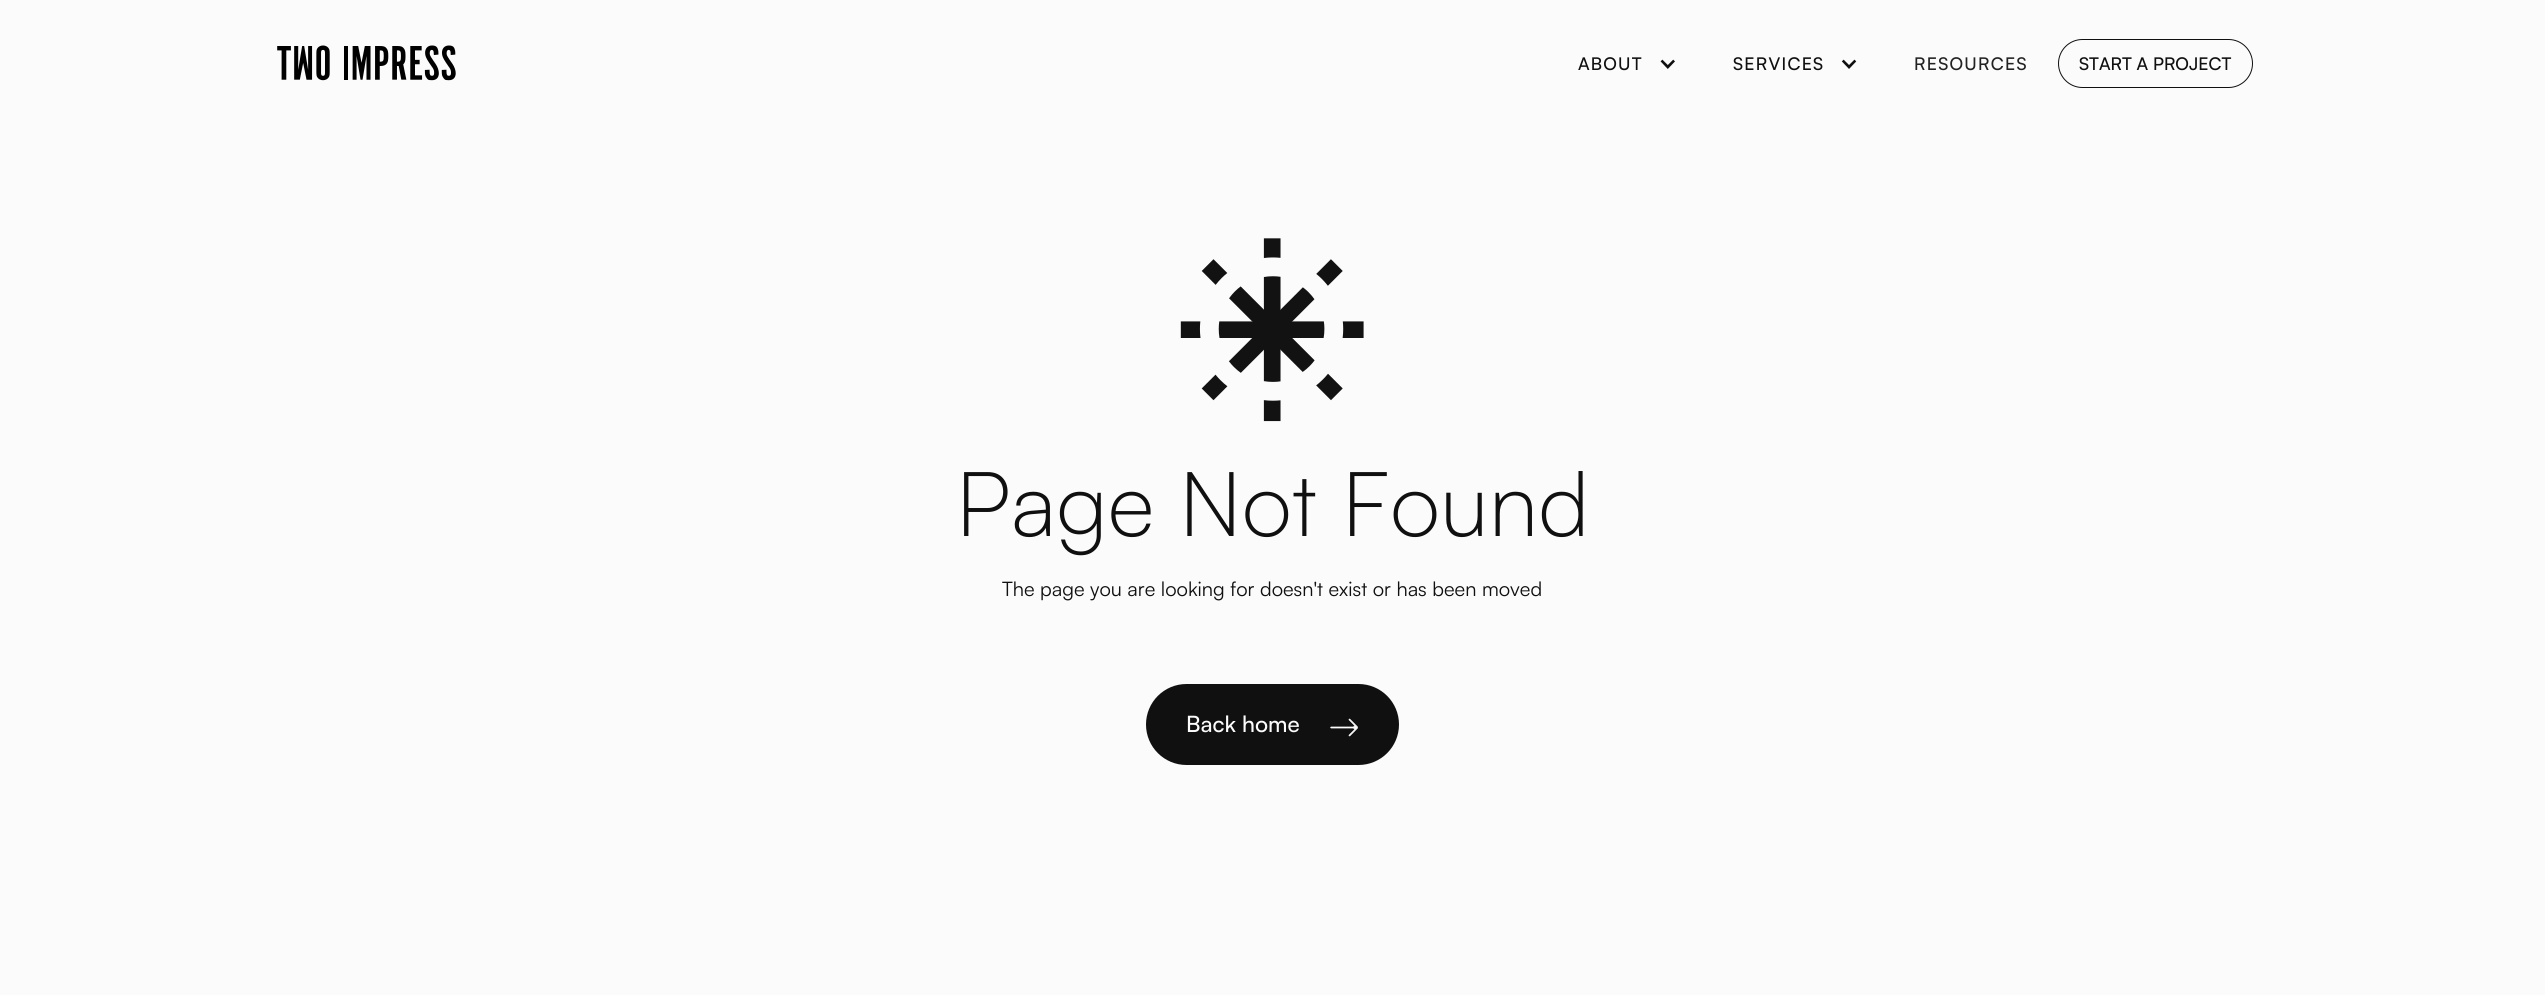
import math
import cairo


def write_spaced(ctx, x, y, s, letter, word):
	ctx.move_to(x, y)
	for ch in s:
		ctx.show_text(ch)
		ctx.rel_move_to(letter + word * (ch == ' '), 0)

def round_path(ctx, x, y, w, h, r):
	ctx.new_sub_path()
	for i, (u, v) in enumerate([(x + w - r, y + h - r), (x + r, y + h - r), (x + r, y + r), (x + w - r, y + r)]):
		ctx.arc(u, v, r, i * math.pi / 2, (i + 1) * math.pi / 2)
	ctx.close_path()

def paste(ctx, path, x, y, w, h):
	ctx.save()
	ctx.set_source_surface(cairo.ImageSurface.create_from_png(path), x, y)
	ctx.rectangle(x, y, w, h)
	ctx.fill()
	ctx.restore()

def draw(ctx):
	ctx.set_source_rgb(0.984, 0.984, 0.984)
	ctx.paint()
	paste(ctx, 'media/1.png', 277, 45, 179, 36)
	ctx.select_font_face('Satoshi Medium')
	ctx.set_font_size(17.5)
	ctx.set_source_rgb(0.063, 0.063, 0.067)
	write_spaced(ctx, 1578, 70, 'ABOUT', 1.25, 0)
	paste(ctx, 'media/2.png', 1660, 59, 15, 10)
	write_spaced(ctx, 1733, 70, 'SERVICES', 1.25, 0)
	paste(ctx, 'media/3.png', 1841, 59, 16, 10)
	ctx.set_source_rgb(0.133, 0.133, 0.133)
	write_spaced(ctx, 1914, 70, 'RESOURCES', 1.25, 0)
	round_path(ctx, 2058.5, 39.5, 194, 48, 24)
	ctx.set_source_rgb(0.063, 0.063, 0.067)
	ctx.set_line_width(1)
	ctx.stroke()
	ctx.move_to(2079, 70)
	ctx.show_text('START A PROJECT')
	paste(ctx, 'media/4.png', 1180, 238, 184, 184)
	ctx.select_font_face('Satoshi Light')
	ctx.set_font_size(90)
	ctx.move_to(956, 536)
	ctx.show_text('Page Not Found')
	ctx.select_font_face('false')
	ctx.set_font_size(20)
	ctx.move_to(1002, 596)
	ctx.show_text('The page you are looking for doesn\'t exist or has been moved')
	round_path(ctx, 1146, 684, 253, 81, 40.5)
	ctx.fill()
	ctx.select_font_face('Satoshi Medium')
	ctx.set_font_size(22.5)
	ctx.set_source_rgb(0.984, 0.984, 0.984)
	ctx.move_to(1186, 732)
	ctx.show_text('Back home')
	paste(ctx, 'media/5.png', 1330, 718, 28, 19)


surface = cairo.ImageSurface(cairo.FORMAT_RGB24, 2545, 995)
ctx = cairo.Context(surface)
options = cairo.FontOptions()
options.set_hint_metrics(cairo.HINT_METRICS_OFF)
options.set_hint_style(cairo.HINT_STYLE_NONE)
ctx.set_font_options(options)
ctx.set_miter_limit(4)
draw(ctx)
surface.write_to_png('image.png')
